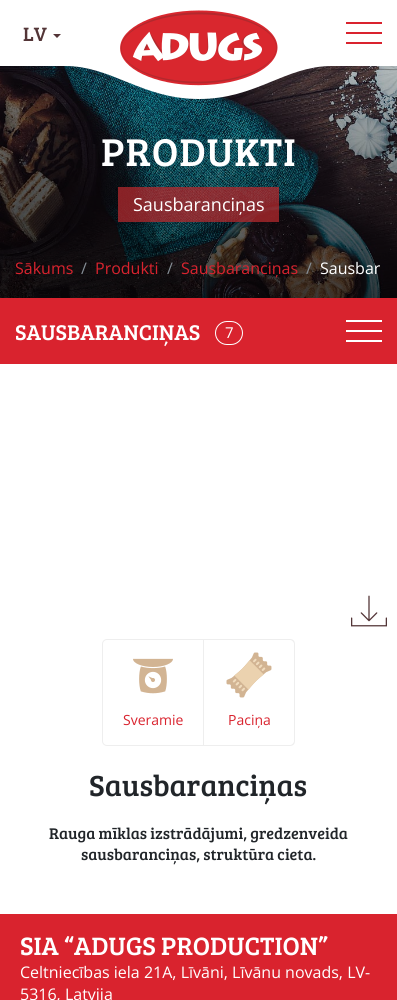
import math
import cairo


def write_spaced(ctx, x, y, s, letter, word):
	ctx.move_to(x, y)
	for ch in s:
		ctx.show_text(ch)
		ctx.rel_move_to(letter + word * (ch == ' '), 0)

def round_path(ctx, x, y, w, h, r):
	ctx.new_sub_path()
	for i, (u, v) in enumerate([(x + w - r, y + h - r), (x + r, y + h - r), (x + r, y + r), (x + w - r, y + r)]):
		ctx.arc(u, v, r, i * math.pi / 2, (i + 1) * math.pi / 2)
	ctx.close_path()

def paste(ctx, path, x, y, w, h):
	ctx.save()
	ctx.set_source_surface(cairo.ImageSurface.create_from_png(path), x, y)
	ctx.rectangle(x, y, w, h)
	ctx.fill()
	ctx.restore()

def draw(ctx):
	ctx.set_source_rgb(1, 1, 1)
	ctx.paint()
	paste(ctx, 'media/2.png', 0, 66, 397, 232)
	gradient = cairo.LinearGradient(198, -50, 199, 298)
	gradient.add_color_stop_rgba(0, 0, 0, 0, 0)
	gradient.add_color_stop_rgba(1, 0, 0, 0, 0.75)
	ctx.set_source(gradient)
	ctx.rectangle(0, 66, 397, 232)
	ctx.fill()
	ctx.set_source_rgba(0, 0, 0, 0.25)
	ctx.new_path()
	ctx.move_to(-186, 66)
	ctx.line_to(78, 66)
	ctx.line_to(186, 298)
	ctx.line_to(-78, 298)
	ctx.close_path()
	ctx.fill()
	ctx.new_path()
	ctx.move_to(332, 69)
	ctx.curve_to(310, 69, 292, 76, 273, 84)
	ctx.curve_to(252, 93, 229, 102, 199, 102)
	ctx.curve_to(168, 102, 146, 93, 124, 84)
	ctx.curve_to(105, 76, 87, 69, 65, 69)
	ctx.line_to(65, 70)
	ctx.curve_to(87, 70, 105, 77, 124, 85)
	ctx.curve_to(146, 94, 168, 103, 199, 103)
	ctx.curve_to(230, 103, 252, 94, 274, 85)
	ctx.curve_to(293, 78, 311, 70, 332, 70)
	ctx.close_path()
	ctx.fill()
	ctx.set_source_rgb(1, 1, 1)
	ctx.new_path()
	ctx.move_to(332, 0)
	ctx.line_to(65, 0)
	ctx.line_to(65, 66)
	ctx.curve_to(112, 66, 142, 99, 199, 99)
	ctx.curve_to(256, 99, 285, 66, 332, 66)
	ctx.close_path()
	ctx.fill()
	ctx.set_source_rgba(0, 0, 0, 0.25)
	ctx.rectangle(0, 69, 65, 1)
	ctx.fill()
	ctx.rectangle(332, 69, 65, 1)
	ctx.fill()
	paste(ctx, 'media/1.png', 120, 10, 158, 76)
	ctx.select_font_face('Bree Serif')
	ctx.set_font_size(20)
	ctx.set_source_rgb(0.325, 0.208, 0.216)
	ctx.move_to(23, 41)
	ctx.show_text('LV')
	ctx.new_path()
	ctx.move_to(53, 34)
	ctx.line_to(61, 34)
	ctx.line_to(57, 38)
	ctx.close_path()
	ctx.fill()
	ctx.set_source_rgb(0.851, 0.137, 0.18)
	ctx.rectangle(346, 32, 36, 2)
	ctx.rectangle(346, 22, 36, 2)
	ctx.rectangle(346, 42, 36, 2)
	ctx.fill()
	ctx.set_font_size(40)
	ctx.set_source_rgb(1, 1, 1)
	write_spaced(ctx, 101, 166, 'PRODUKTI', 1, 0)
	ctx.set_source_rgba(0.702, 0.157, 0.176, 0.75)
	ctx.rectangle(118, 187, 161, 35)
	ctx.fill()
	ctx.select_font_face('Open Sans')
	ctx.set_font_size(18)
	ctx.set_source_rgb(1, 1, 1)
	ctx.move_to(133, 211)
	ctx.show_text('Sausbaranciņas')
	ctx.set_font_size(16)
	ctx.set_source_rgb(0.851, 0.137, 0.18)
	ctx.move_to(15, 274)
	ctx.show_text('Sākums')
	ctx.set_source_rgb(0.525, 0.557, 0.588)
	ctx.move_to(81, 274)
	ctx.show_text('/')
	ctx.set_source_rgb(0.851, 0.137, 0.18)
	ctx.move_to(95, 274)
	ctx.show_text('Produkti')
	ctx.set_source_rgb(0.525, 0.557, 0.588)
	ctx.move_to(167, 274)
	ctx.show_text('/')
	ctx.set_source_rgb(0.851, 0.137, 0.18)
	ctx.move_to(181, 274)
	ctx.show_text('Sausbaranciņas')
	ctx.set_source_rgb(0.525, 0.557, 0.588)
	ctx.move_to(306, 274)
	ctx.show_text('/')
	ctx.set_source_rgb(1, 1, 1)
	ctx.move_to(320, 274)
	ctx.show_text('Sausbar')
	ctx.set_source_rgb(0.851, 0.137, 0.18)
	ctx.rectangle(0, 298, 397, 66)
	ctx.fill()
	ctx.select_font_face('Bree Serif')
	ctx.set_font_size(22)
	ctx.set_source_rgb(1, 1, 1)
	ctx.move_to(15, 340)
	ctx.show_text('SAUSBARANCIŅAS')
	round_path(ctx, 215.5, 321.5, 27, 23, 11.5)
	ctx.set_line_width(1)
	ctx.stroke()
	ctx.select_font_face('Open Sans')
	ctx.set_font_size(15)
	ctx.move_to(225, 338)
	ctx.show_text('7')
	ctx.rectangle(346, 330, 36, 2)
	ctx.rectangle(346, 320, 36, 2)
	ctx.rectangle(346, 340, 36, 2)
	ctx.fill()
	paste(ctx, 'media/3.png', 351, 595, 36, 32)
	ctx.new_path()
	ctx.move_to(107, 639.5)
	ctx.line_to(203.5, 639.5)
	ctx.line_to(203.5, 745.5)
	ctx.line_to(107, 745.5)
	ctx.curve_to(104.5, 745.5, 102.5, 743.5, 102.5, 741)
	ctx.line_to(102.5, 644)
	ctx.curve_to(102.5, 641.5, 104.5, 639.5, 107, 639.5)
	ctx.close_path()
	ctx.set_source_rgb(0.933, 0.933, 0.933)
	ctx.stroke()
	paste(ctx, 'media/4.png', 133, 658, 40, 36)
	ctx.set_font_size(14)
	ctx.set_source_rgb(0.851, 0.137, 0.18)
	ctx.move_to(123, 725)
	ctx.show_text('Sveramie')
	ctx.set_source_rgb(0.933, 0.933, 0.933)
	ctx.set_fill_rule(cairo.FILL_RULE_EVEN_ODD)
	ctx.new_path()
	ctx.move_to(204, 639)
	ctx.line_to(290, 639)
	ctx.curve_to(293, 639, 295, 641, 295, 644)
	ctx.line_to(295, 741)
	ctx.curve_to(295, 744, 293, 746, 290, 746)
	ctx.line_to(204, 746)
	ctx.close_path()
	ctx.move_to(204, 640)
	ctx.line_to(290, 640)
	ctx.curve_to(292, 640, 294, 642, 294, 644)
	ctx.line_to(294, 741)
	ctx.curve_to(294, 743, 292, 745, 290, 745)
	ctx.line_to(204, 745)
	ctx.close_path()
	ctx.fill()
	paste(ctx, 'media/5.png', 226, 652, 46, 46)
	ctx.set_source_rgb(0.851, 0.137, 0.18)
	ctx.move_to(228, 725)
	ctx.show_text('Paciņa')
	ctx.select_font_face('Bree Serif')
	ctx.set_font_size(30)
	ctx.set_source_rgb(0.129, 0.145, 0.161)
	ctx.move_to(89, 796)
	ctx.show_text('Sausbaranciņas')
	ctx.set_font_size(16)
	ctx.move_to(49, 839)
	ctx.show_text('Rauga mīklas izstrādājumi, gredzenveida')
	ctx.move_to(81, 860)
	ctx.show_text('sausbaranciņas, struktūra cieta.')
	ctx.set_source_rgb(0.851, 0.137, 0.18)
	ctx.rectangle(0, 914, 397, 86)
	ctx.fill()
	ctx.set_font_size(26)
	ctx.set_source_rgb(1, 1, 1)
	ctx.move_to(20, 955)
	ctx.show_text('SIA “ADUGS PRODUCTION”')
	ctx.select_font_face('Open Sans')
	ctx.set_font_size(16)
	ctx.move_to(20, 978)
	ctx.show_text('Celtniecības iela 21A, Līvāni, Līvānu novads, LV-')
	ctx.move_to(20, 1000)
	ctx.show_text('5316, Latvija')


surface = cairo.ImageSurface(cairo.FORMAT_RGB24, 397, 1000)
ctx = cairo.Context(surface)
options = cairo.FontOptions()
options.set_hint_metrics(cairo.HINT_METRICS_OFF)
options.set_hint_style(cairo.HINT_STYLE_NONE)
ctx.set_font_options(options)
ctx.set_miter_limit(4)
draw(ctx)
surface.write_to_png('image.png')
